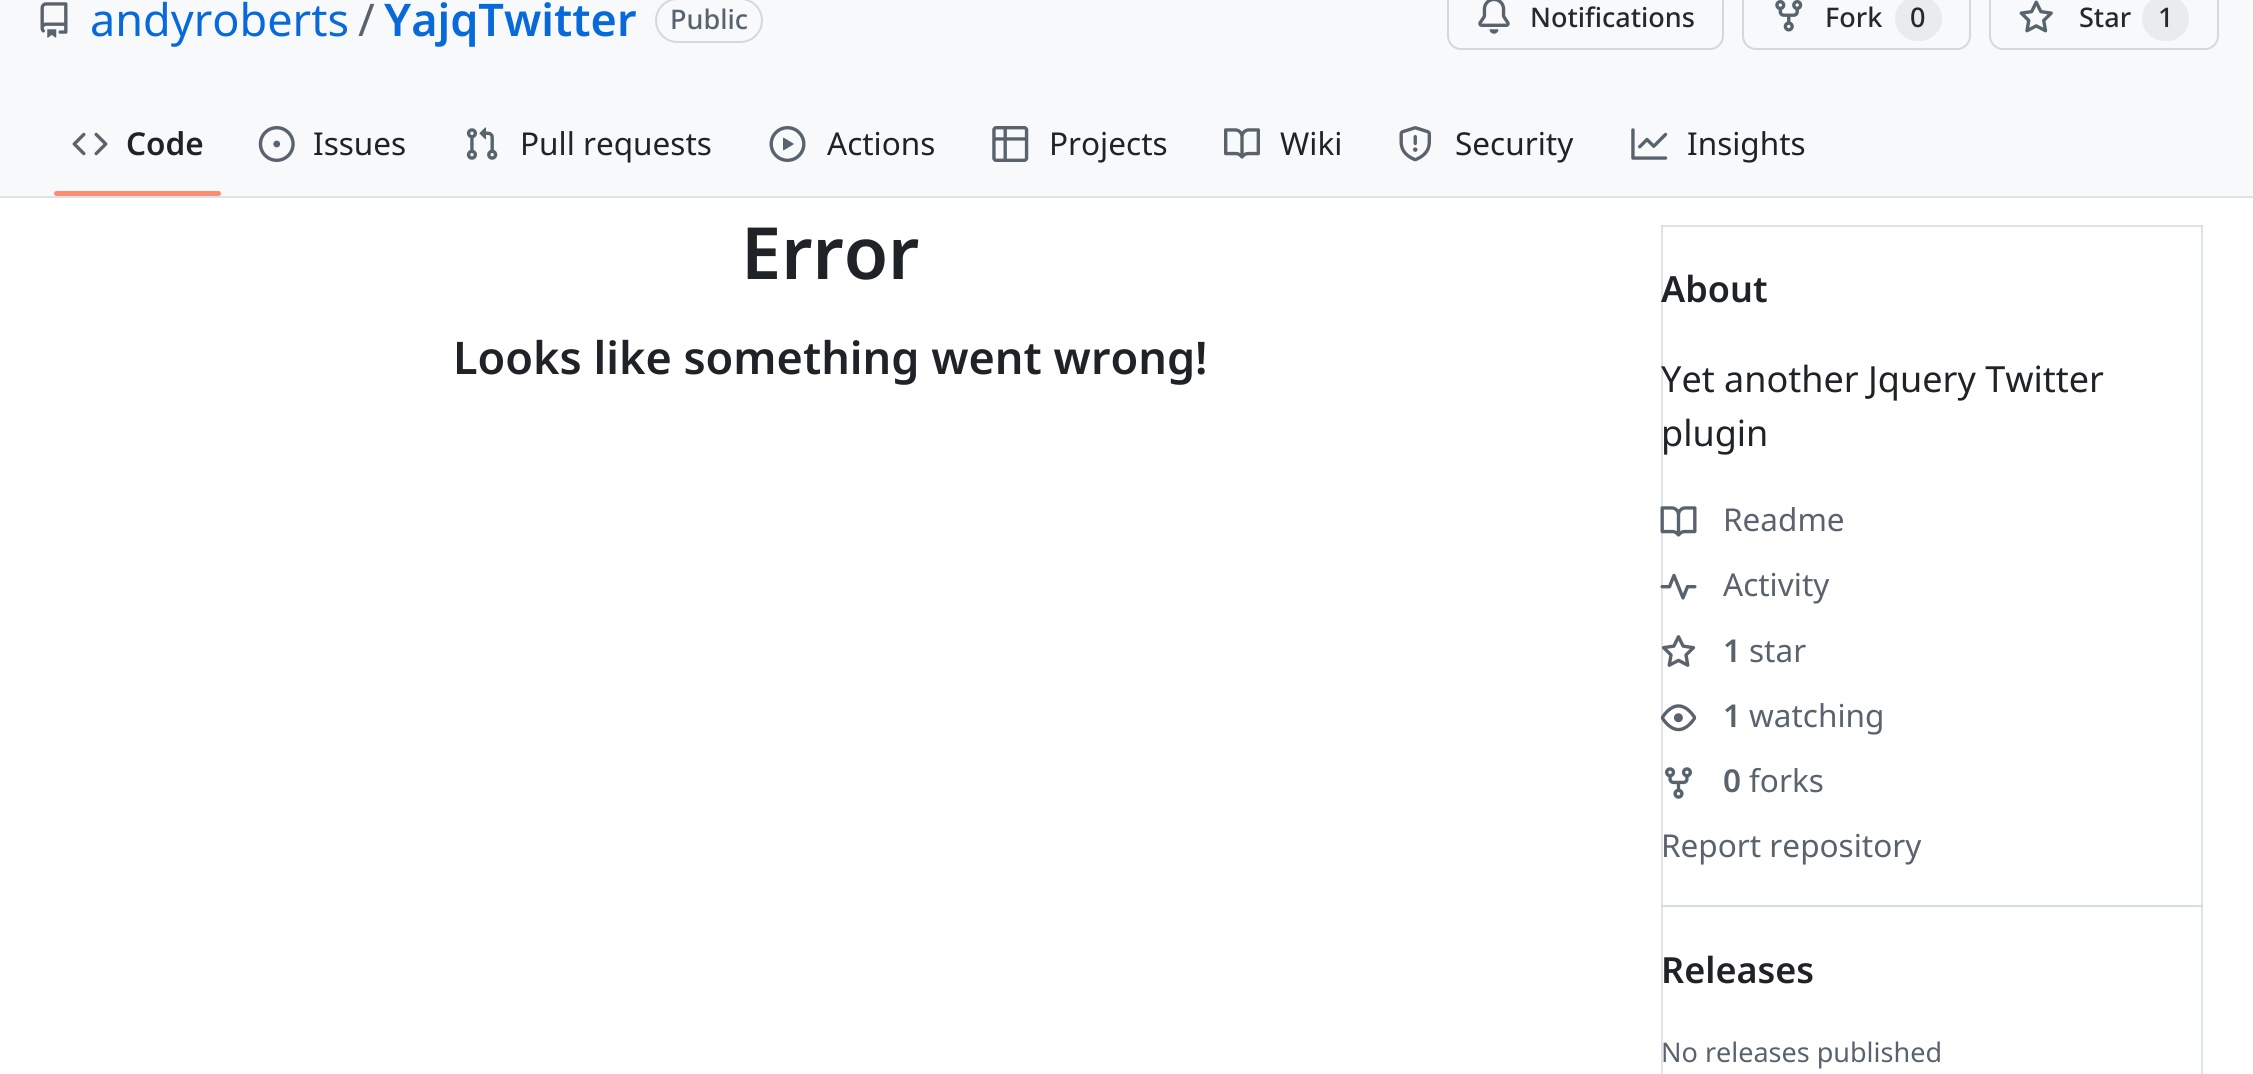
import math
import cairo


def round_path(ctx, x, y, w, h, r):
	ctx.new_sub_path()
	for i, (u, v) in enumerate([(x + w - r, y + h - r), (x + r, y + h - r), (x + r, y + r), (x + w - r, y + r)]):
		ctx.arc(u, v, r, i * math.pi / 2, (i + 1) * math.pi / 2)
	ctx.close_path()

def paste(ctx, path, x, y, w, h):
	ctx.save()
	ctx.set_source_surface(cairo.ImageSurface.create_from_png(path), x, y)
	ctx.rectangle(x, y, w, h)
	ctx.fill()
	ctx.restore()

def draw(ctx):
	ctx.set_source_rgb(1, 1, 1)
	ctx.paint()
	ctx.set_source_rgb(0.875, 0.894, 0.914)
	ctx.rectangle(1661, 225, 2, 849)
	ctx.rectangle(2201, 225, 2, 849)
	ctx.fill()
	ctx.set_source_rgb(0.965, 0.973, 0.98)
	ctx.rectangle(0, 0, 2253, 196)
	ctx.fill()
	paste(ctx, 'media/1.png', 40, 2, 28, 36)
	ctx.select_font_face('Noto Sans')
	ctx.set_font_size(45)
	ctx.set_source_rgb(0.035, 0.412, 0.855)
	ctx.move_to(90, 36)
	ctx.show_text('andyroberts')
	ctx.set_source_rgb(0.349, 0.388, 0.431)
	ctx.move_to(358, 36)
	ctx.show_text('/')
	ctx.select_font_face('Noto Sans SemiBold')
	ctx.set_source_rgb(0.035, 0.412, 0.855)
	ctx.move_to(384, 36)
	ctx.show_text('YajqTwitter')
	round_path(ctx, 656, -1, 106, 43, 21.5)
	ctx.set_source_rgb(0.82, 0.851, 0.878)
	ctx.stroke()
	ctx.select_font_face('Noto Sans Medium')
	ctx.set_font_size(27)
	ctx.set_source_rgb(0.349, 0.388, 0.431)
	ctx.move_to(670, 29)
	ctx.show_text('Public')
	round_path(ctx, 1448, -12, 275, 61, 13)
	ctx.set_source_rgb(0.82, 0.851, 0.878)
	ctx.stroke()
	paste(ctx, 'media/2.png', 1478, 0, 32, 34)
	ctx.set_source_rgb(0.145, 0.161, 0.18)
	ctx.move_to(1530, 27)
	ctx.show_text('Notifications')
	round_path(ctx, 1743, -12, 227, 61, 13)
	ctx.set_source_rgb(0.82, 0.851, 0.878)
	ctx.stroke()
	paste(ctx, 'media/3.png', 1775, 0, 28, 32)
	ctx.set_source_rgb(0.145, 0.161, 0.18)
	ctx.move_to(1825, 27)
	ctx.show_text('Fork')
	ctx.set_source_rgb(0.91, 0.922, 0.933)
	round_path(ctx, 1895, -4, 47, 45, 22.5)
	ctx.fill()
	ctx.set_source_rgb(0.145, 0.161, 0.18)
	ctx.move_to(1910, 27)
	ctx.show_text('0')
	round_path(ctx, 1990, -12, 228, 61, 13)
	ctx.set_source_rgb(0.82, 0.851, 0.878)
	ctx.stroke()
	paste(ctx, 'media/4.png', 2019, 0, 34, 33)
	ctx.set_source_rgb(0.145, 0.161, 0.18)
	ctx.move_to(2079, 27)
	ctx.show_text('Star')
	ctx.set_source_rgb(0.91, 0.922, 0.933)
	round_path(ctx, 2142, -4, 47, 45, 22.5)
	ctx.fill()
	ctx.set_source_rgb(0.145, 0.161, 0.18)
	ctx.move_to(2158, 27)
	ctx.show_text('1')
	ctx.set_source_rgb(0.863, 0.886, 0.91)
	ctx.rectangle(0, 196, 2253, 2)
	ctx.fill()
	paste(ctx, 'media/5.png', 72, 132, 36, 24)
	ctx.select_font_face('Noto Sans SemiBold')
	ctx.set_font_size(31.5)
	ctx.set_source_rgb(0.122, 0.137, 0.157)
	ctx.move_to(126, 155)
	ctx.show_text('Code')
	ctx.set_source_rgb(0.992, 0.549, 0.451)
	round_path(ctx, 54, 191, 167, 5, 2.5)
	ctx.fill()
	paste(ctx, 'media/6.png', 258, 126, 37, 36)
	ctx.select_font_face('Noto Sans')
	ctx.set_source_rgb(0.122, 0.137, 0.157)
	ctx.move_to(313, 155)
	ctx.show_text('Issues')
	paste(ctx, 'media/7.png', 466, 127, 32, 33)
	ctx.move_to(520, 155)
	ctx.show_text('Pull requests')
	paste(ctx, 'media/8.png', 769, 126, 37, 36)
	ctx.move_to(827, 155)
	ctx.show_text('Actions')
	paste(ctx, 'media/9.png', 992, 126, 37, 36)
	ctx.move_to(1049, 155)
	ctx.show_text('Projects')
	paste(ctx, 'media/10.png', 1224, 128, 36, 31)
	ctx.move_to(1280, 155)
	ctx.show_text('Wiki')
	paste(ctx, 'media/11.png', 1399, 126, 32, 36)
	ctx.move_to(1455, 155)
	ctx.show_text('Security')
	paste(ctx, 'media/12.png', 1631, 128, 37, 32)
	ctx.move_to(1687, 155)
	ctx.show_text('Insights')
	ctx.select_font_face('Noto Sans SemiBold')
	ctx.set_font_size(72)
	ctx.move_to(741, 279)
	ctx.show_text('Error')
	ctx.set_font_size(45)
	ctx.move_to(453, 374)
	ctx.show_text('Looks like something went wrong!')
	ctx.set_source_rgb(0.875, 0.894, 0.914)
	ctx.rectangle(1661, 225, 542, 2)
	ctx.fill()
	ctx.set_source_rgb(0.835, 0.863, 0.89)
	ctx.rectangle(1661, 225, 2, 2)
	ctx.rectangle(2201, 225, 2, 2)
	ctx.fill()
	ctx.set_font_size(36)
	ctx.set_source_rgb(0.122, 0.137, 0.157)
	ctx.move_to(1661, 302)
	ctx.show_text('About')
	ctx.select_font_face('Noto Sans')
	ctx.move_to(1661, 392)
	ctx.show_text('Yet another Jquery Twitter')
	ctx.move_to(1661, 446)
	ctx.show_text('plugin')
	paste(ctx, 'media/13.png', 1660, 506, 37, 31)
	ctx.set_font_size(31.5)
	ctx.set_source_rgb(0.349, 0.388, 0.431)
	ctx.move_to(1723, 531)
	ctx.show_text('Readme')
	paste(ctx, 'media/14.png', 1660, 573, 37, 27)
	ctx.move_to(1723, 596)
	ctx.show_text('Activity')
	paste(ctx, 'media/15.png', 1661, 635, 35, 32)
	ctx.select_font_face('Noto Sans SemiBold')
	ctx.move_to(1723, 662)
	ctx.show_text('1')
	ctx.select_font_face('Noto Sans')
	ctx.move_to(1749, 662)
	ctx.show_text('star')
	paste(ctx, 'media/16.png', 1660, 704, 37, 28)
	ctx.select_font_face('Noto Sans SemiBold')
	ctx.move_to(1723, 727)
	ctx.show_text('1')
	ctx.select_font_face('Noto Sans')
	ctx.move_to(1749, 727)
	ctx.show_text('watching')
	paste(ctx, 'media/17.png', 1665, 767, 27, 32)
	ctx.select_font_face('Noto Sans SemiBold')
	ctx.move_to(1723, 792)
	ctx.show_text('0')
	ctx.select_font_face('Noto Sans')
	ctx.move_to(1749, 792)
	ctx.show_text('forks')
	ctx.move_to(1661, 857)
	ctx.show_text('Report repository')
	ctx.set_source_rgb(0.835, 0.863, 0.89)
	ctx.rectangle(1661, 905, 542, 2)
	ctx.fill()
	ctx.set_source_rgb(0.82, 0.851, 0.878)
	ctx.rectangle(1661, 905, 2, 2)
	ctx.rectangle(2201, 905, 2, 2)
	ctx.fill()
	ctx.select_font_face('Noto Sans SemiBold')
	ctx.set_font_size(36)
	ctx.set_source_rgb(0.122, 0.137, 0.157)
	ctx.move_to(1661, 983)
	ctx.show_text('Releases')
	ctx.select_font_face('Noto Sans')
	ctx.set_font_size(27)
	ctx.set_source_rgb(0.349, 0.388, 0.431)
	ctx.move_to(1661, 1062)
	ctx.show_text('No releases published')


surface = cairo.ImageSurface(cairo.FORMAT_RGB24, 2253, 1074)
ctx = cairo.Context(surface)
options = cairo.FontOptions()
options.set_hint_metrics(cairo.HINT_METRICS_OFF)
options.set_hint_style(cairo.HINT_STYLE_NONE)
ctx.set_font_options(options)
ctx.set_miter_limit(4)
draw(ctx)
surface.write_to_png('image.png')
